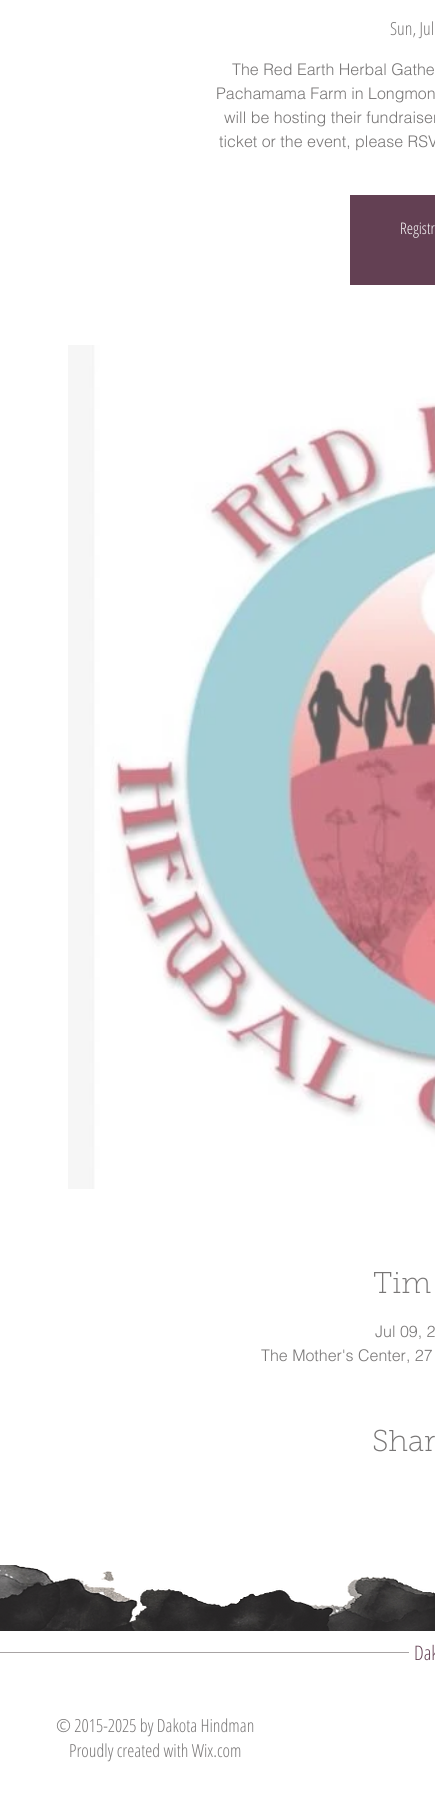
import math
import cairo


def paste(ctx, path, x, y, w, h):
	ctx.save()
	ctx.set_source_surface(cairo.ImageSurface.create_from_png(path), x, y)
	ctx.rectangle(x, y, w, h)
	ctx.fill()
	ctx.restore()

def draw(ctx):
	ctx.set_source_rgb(1, 1, 1)
	ctx.paint()
	ctx.select_font_face('Open Sans Condensed Light')
	ctx.set_font_size(18)
	ctx.set_source_rgb(0.471, 0.463, 0.463)
	ctx.move_to(390, 35)
	ctx.show_text('Sun, Jul')
	ctx.select_font_face('helvetica Light')
	ctx.set_font_size(16)
	for x, y, s in [
		(232, 75, 'The Red Earth Herbal Gathe'),
		(216, 99, 'Pachamama Farm in Longmon'),
		(224, 123, 'will be hosting their fundraiser'),
		(219, 147, 'ticket or the event, please RSV'),
	]:
		ctx.move_to(x, y)
		ctx.show_text(s)
	ctx.set_source_rgb(0.388, 0.251, 0.325)
	ctx.rectangle(350, 195, 85, 90)
	ctx.fill()
	ctx.select_font_face('Open Sans Condensed Light')
	ctx.set_source_rgb(1, 1, 1)
	ctx.move_to(400, 234)
	ctx.show_text('Registr')
	paste(ctx, 'media/1.png', 68, 345, 367, 844)
	ctx.select_font_face('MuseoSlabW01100 Thin')
	ctx.set_font_size(30)
	ctx.set_source_rgb(0.471, 0.463, 0.463)
	ctx.move_to(373, 1293)
	ctx.show_text('Tim')
	ctx.select_font_face('helvetica Light')
	ctx.set_font_size(16)
	ctx.move_to(375, 1337)
	ctx.show_text('Jul 09, 2')
	ctx.move_to(261, 1361)
	ctx.show_text('The Mother\'s Center, 27')
	ctx.select_font_face('MuseoSlabW01100 Thin')
	ctx.set_font_size(30)
	ctx.move_to(372, 1451)
	ctx.show_text('Shar')
	paste(ctx, 'media/2.png', 0, 1565, 435, 66)
	ctx.set_source_rgb(0.659, 0.643, 0.643)
	ctx.rectangle(0, 1652, 409, 1)
	ctx.fill()
	ctx.select_font_face('Open Sans Condensed Light')
	ctx.set_font_size(20)
	ctx.set_source_rgb(0.388, 0.251, 0.325)
	ctx.move_to(414, 1660)
	ctx.show_text('Dak')
	ctx.set_font_size(18)
	ctx.set_source_rgb(0.471, 0.463, 0.463)
	ctx.move_to(56, 1732)
	ctx.show_text('© 2015-2025 by Dakota Hindman')
	ctx.move_to(69, 1757)
	ctx.show_text('Proudly created with Wix.com')


surface = cairo.ImageSurface(cairo.FORMAT_RGB24, 435, 1807)
ctx = cairo.Context(surface)
options = cairo.FontOptions()
options.set_hint_metrics(cairo.HINT_METRICS_OFF)
options.set_hint_style(cairo.HINT_STYLE_NONE)
ctx.set_font_options(options)
ctx.set_miter_limit(4)
draw(ctx)
surface.write_to_png('image.png')
